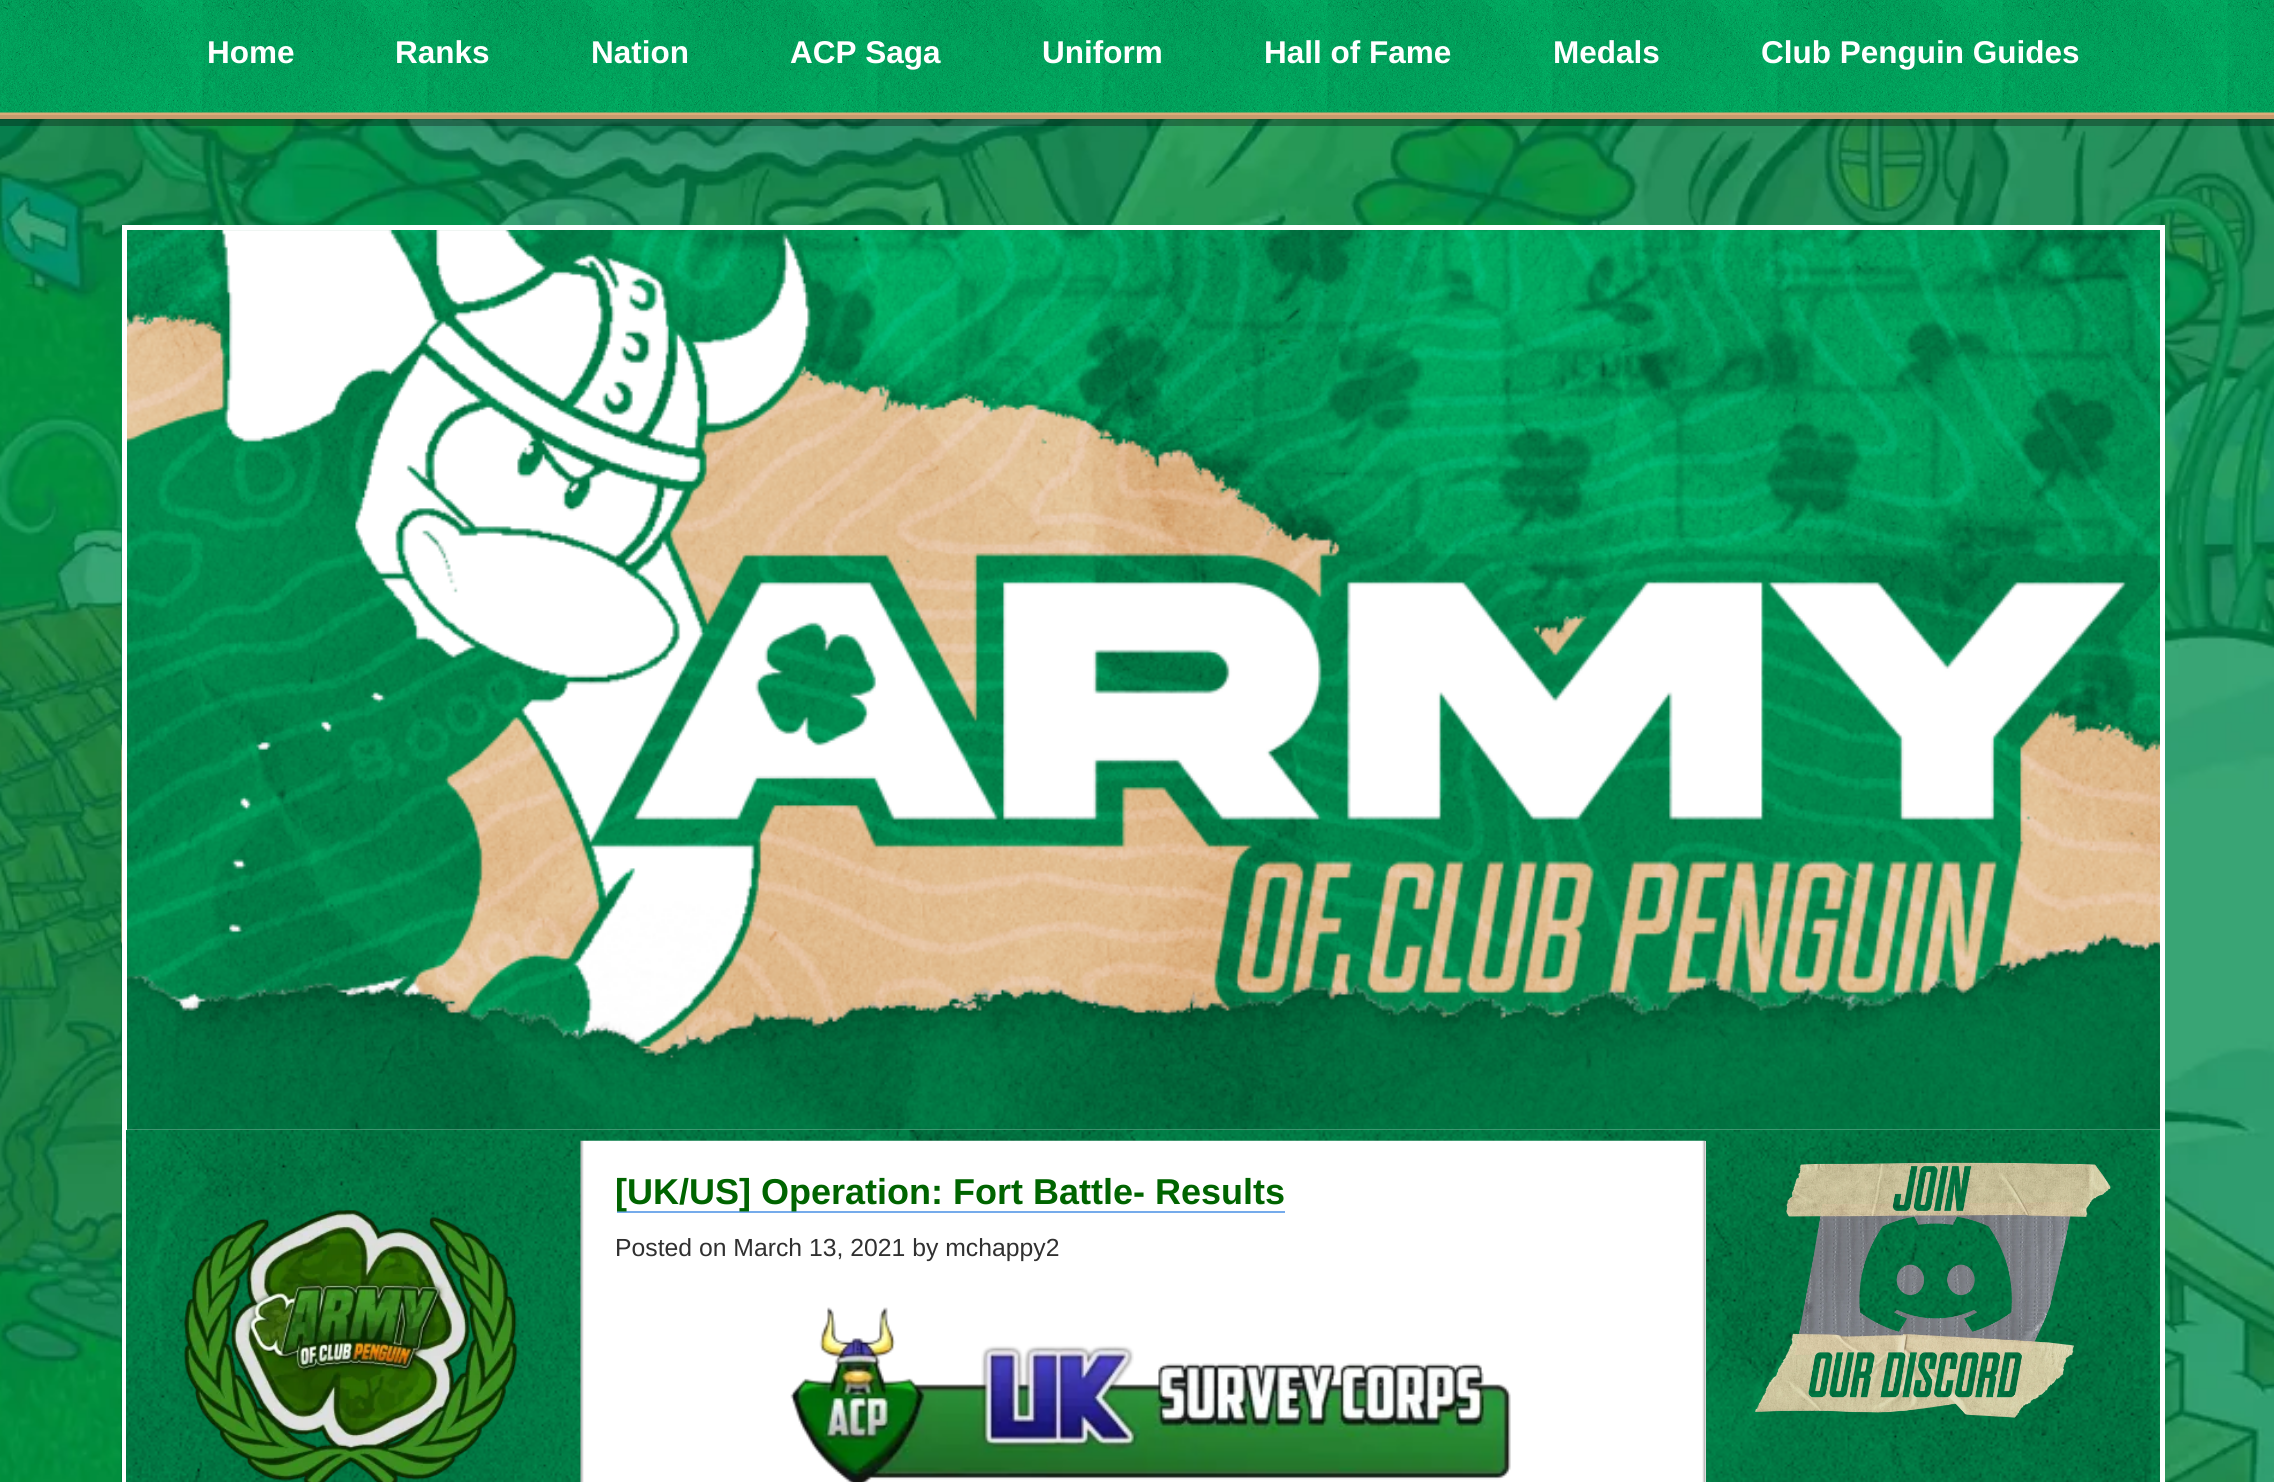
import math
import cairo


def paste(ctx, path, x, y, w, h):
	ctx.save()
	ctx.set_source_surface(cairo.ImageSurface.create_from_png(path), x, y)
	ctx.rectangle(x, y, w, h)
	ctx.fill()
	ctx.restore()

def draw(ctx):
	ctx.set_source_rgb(1, 1, 1)
	ctx.paint()
	paste(ctx, 'media/1.png', 0, 119, 2274, 1363)
	ctx.set_source_rgba(0, 0, 0, 0.3)
	ctx.new_path()
	ctx.move_to(0, 119)
	ctx.line_to(0, 126)
	ctx.line_to(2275, 126)
	ctx.line_to(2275, 7)
	ctx.line_to(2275, 119)
	ctx.close_path()
	ctx.fill()
	ctx.set_source_rgb(0.859, 0.675, 0.475)
	ctx.rectangle(0, 112, 2274, 7)
	ctx.fill()
	paste(ctx, 'media/2.png', 0, 0, 2274, 113)
	ctx.set_source_rgba(0, 0, 0, 0.1)
	ctx.rectangle(0, 115, 2274, 5)
	ctx.fill()
	ctx.select_font_face('Liberation Sans', cairo.FONT_SLANT_NORMAL, cairo.FONT_WEIGHT_BOLD)
	ctx.set_font_size(31.5)
	ctx.set_source_rgb(1, 1, 1)
	for x, y, s in [
		(207, 63, 'Home'),
		(395, 63, 'Ranks'),
		(591, 63, 'Nation'),
		(790, 63, 'ACP Saga'),
		(1042, 63, 'Uniform'),
		(1264, 63, 'Hall of Fame'),
		(1553, 63, 'Medals'),
		(1761, 63, 'Club Penguin Guides'),
	]:
		ctx.move_to(x, y)
		ctx.show_text(s)
	paste(ctx, 'media/4.png', 121, 1125, 1, 357)
	ctx.rectangle(124.5, 1127.5, 2038, 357)
	ctx.set_line_width(5)
	ctx.stroke()
	paste(ctx, 'media/5.png', 126, 1129, 2034, 353)
	paste(ctx, 'media/3.png', 121, 225, 2039, 905)
	ctx.rectangle(122, 225, 2043, 5)
	ctx.rectangle(2160, 225, 5, 905)
	ctx.rectangle(122, 225, 5, 905)
	ctx.fill()
	paste(ctx, 'media/6.png', 184, 1210, 334, 272)
	ctx.rectangle(1705, 1141, 1, 341)
	ctx.fill()
	paste(ctx, 'media/7.png', 580, 1140, 1126, 342)
	ctx.set_source_rgb(0.459, 0.671, 0.918)
	ctx.rectangle(617, 1211, 668, 2)
	ctx.fill()
	ctx.set_font_size(36)
	ctx.set_source_rgb(0, 0.392, 0)
	ctx.move_to(615, 1204)
	ctx.show_text('[UK/US] Operation: Fort Battle- Results')
	ctx.select_font_face('Liberation Sans')
	ctx.set_font_size(24.75)
	ctx.set_source_rgb(0.188, 0.188, 0.188)
	ctx.move_to(615, 1256)
	ctx.show_text('Posted on March 13, 2021 by mchappy2')
	paste(ctx, 'media/8.png', 790, 1307, 721, 175)
	paste(ctx, 'media/9.png', 1755, 1162, 356, 256)


surface = cairo.ImageSurface(cairo.FORMAT_RGB24, 2274, 1482)
ctx = cairo.Context(surface)
options = cairo.FontOptions()
options.set_hint_metrics(cairo.HINT_METRICS_OFF)
options.set_hint_style(cairo.HINT_STYLE_NONE)
ctx.set_font_options(options)
ctx.set_miter_limit(4)
draw(ctx)
surface.write_to_png('image.png')
